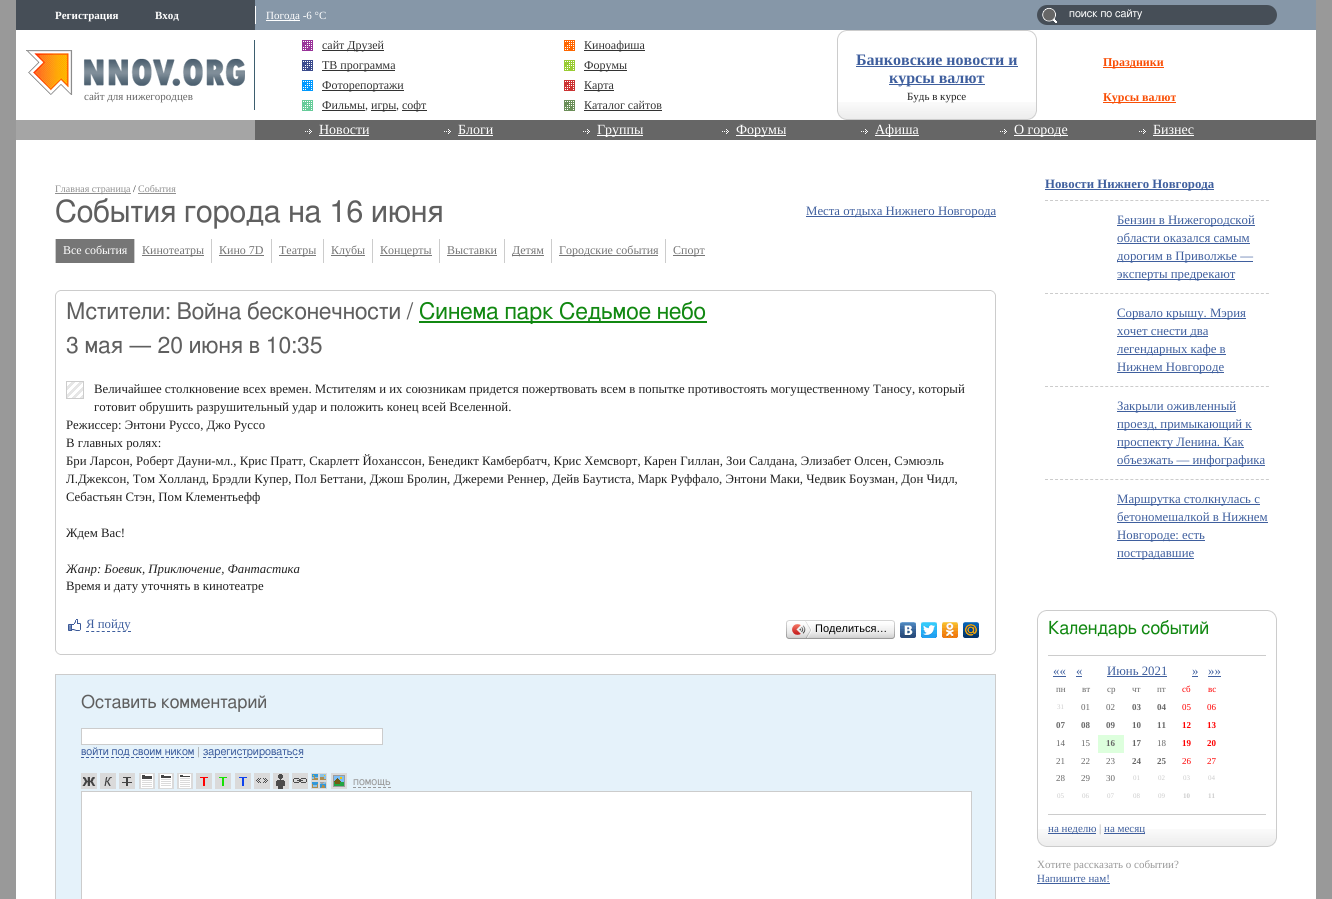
import math
import cairo


def round_path(ctx, x, y, w, h, r):
	ctx.new_sub_path()
	for i, (u, v) in enumerate([(x + w - r, y + h - r), (x + r, y + h - r), (x + r, y + r), (x + w - r, y + r)]):
		ctx.arc(u, v, r, i * math.pi / 2, (i + 1) * math.pi / 2)
	ctx.close_path()

def paste(ctx, path, x, y, w, h):
	ctx.save()
	ctx.set_source_surface(cairo.ImageSurface.create_from_png(path), x, y)
	ctx.rectangle(x, y, w, h)
	ctx.fill()
	ctx.restore()

def draw(ctx):
	ctx.set_source_rgb(0.6, 0.6, 0.6)
	ctx.paint()
	ctx.set_source_rgb(1, 1, 1)
	ctx.rectangle(16, 30, 1300, 869)
	ctx.fill()
	ctx.set_source_rgb(0.525, 0.592, 0.659)
	ctx.rectangle(255, 0, 1061, 30)
	ctx.fill()
	ctx.set_source_rgb(0.275, 0.306, 0.341)
	ctx.rectangle(16, 0, 239, 30)
	ctx.fill()
	ctx.select_font_face('Liberation Serif', cairo.FONT_SLANT_NORMAL, cairo.FONT_WEIGHT_BOLD)
	ctx.set_font_size(11)
	ctx.set_source_rgb(1, 1, 1)
	ctx.move_to(55, 19)
	ctx.show_text('Регистрация')
	ctx.move_to(155, 19)
	ctx.show_text('Вход')
	ctx.rectangle(255, 6, 1, 18)
	ctx.fill()
	ctx.rectangle(266, 20, 34, 1)
	ctx.fill()
	ctx.select_font_face('Liberation Serif')
	ctx.move_to(266, 19)
	ctx.show_text('Погода -6 °C')
	ctx.set_source_rgb(0.275, 0.306, 0.341)
	round_path(ctx, 1037, 5, 240, 20, 10)
	ctx.fill()
	paste(ctx, 'media/1.png', 1042, 7, 15, 16)
	ctx.select_font_face('FreeSans')
	ctx.set_source_rgb(1, 1, 1)
	ctx.move_to(1069, 17)
	ctx.show_text('поиск по сайту')
	paste(ctx, 'media/2.png', 26, 50, 219, 45)
	ctx.set_source_rgb(0.239, 0.369, 0.435)
	ctx.rectangle(254, 40, 1, 70)
	ctx.fill()
	ctx.select_font_face('Liberation Serif')
	ctx.set_source_rgb(0.4, 0.4, 0.4)
	ctx.move_to(84, 100)
	ctx.show_text('сайт для нижегородцев')
	ctx.set_source_rgb(0.6, 0.2, 0.6)
	ctx.rectangle(302, 40, 11, 11)
	ctx.fill()
	paste(ctx, 'media/3.png', 303, 41, 9, 9)
	ctx.set_source_rgb(0.2, 0.2, 0.2)
	ctx.rectangle(322, 50, 62, 1)
	ctx.fill()
	ctx.set_font_size(12)
	ctx.move_to(322, 49)
	ctx.show_text('сайт Друзей')
	ctx.set_source_rgb(1, 0.4, 0)
	ctx.rectangle(564, 40, 11, 11)
	ctx.fill()
	paste(ctx, 'media/4.png', 565, 41, 9, 9)
	ctx.set_source_rgb(0.2, 0.2, 0.2)
	ctx.rectangle(584, 50, 61, 1)
	ctx.fill()
	ctx.move_to(584, 49)
	ctx.show_text('Киноафиша')
	ctx.set_source_rgb(0.231, 0.294, 0.549)
	ctx.rectangle(302, 60, 11, 11)
	ctx.fill()
	paste(ctx, 'media/5.png', 303, 61, 9, 9)
	ctx.set_source_rgb(0.2, 0.2, 0.2)
	ctx.rectangle(322, 70, 73, 1)
	ctx.fill()
	ctx.move_to(322, 69)
	ctx.show_text('ТВ программа')
	ctx.set_source_rgb(0.6, 0.8, 0.2)
	ctx.rectangle(564, 60, 11, 11)
	ctx.fill()
	paste(ctx, 'media/6.png', 565, 61, 9, 9)
	ctx.set_source_rgb(0.2, 0.2, 0.2)
	ctx.rectangle(584, 70, 43, 1)
	ctx.fill()
	ctx.move_to(584, 69)
	ctx.show_text('Форумы')
	ctx.set_source_rgb(0, 0.6, 1)
	ctx.rectangle(302, 80, 11, 11)
	ctx.fill()
	paste(ctx, 'media/7.png', 303, 81, 9, 9)
	ctx.set_source_rgb(0.2, 0.2, 0.2)
	ctx.rectangle(322, 90, 82, 1)
	ctx.fill()
	ctx.move_to(322, 89)
	ctx.show_text('Фоторепортажи')
	ctx.set_source_rgb(0.8, 0.2, 0.2)
	ctx.rectangle(564, 80, 11, 11)
	ctx.fill()
	paste(ctx, 'media/8.png', 565, 81, 9, 9)
	ctx.set_source_rgb(0.2, 0.2, 0.2)
	ctx.rectangle(584, 90, 30, 1)
	ctx.fill()
	ctx.move_to(584, 89)
	ctx.show_text('Карта')
	ctx.set_source_rgb(0.4, 0.8, 0.6)
	ctx.rectangle(302, 100, 11, 11)
	ctx.fill()
	paste(ctx, 'media/9.png', 303, 101, 9, 9)
	ctx.set_source_rgb(0.2, 0.2, 0.2)
	ctx.move_to(322, 109)
	ctx.show_text('Фильмы')
	ctx.rectangle(322, 110, 43, 1)
	ctx.fill()
	ctx.move_to(365, 109)
	ctx.show_text(',')
	ctx.rectangle(371, 110, 25, 1)
	ctx.fill()
	ctx.move_to(396, 109)
	ctx.show_text(',')
	ctx.move_to(371, 109)
	ctx.show_text('игры')
	ctx.rectangle(402, 110, 25, 1)
	ctx.fill()
	ctx.move_to(402, 109)
	ctx.show_text('софт')
	ctx.set_source_rgb(0.42, 0.561, 0.349)
	ctx.rectangle(564, 100, 11, 11)
	ctx.fill()
	paste(ctx, 'media/10.png', 565, 101, 9, 9)
	ctx.set_source_rgb(0.2, 0.2, 0.2)
	ctx.move_to(584, 109)
	ctx.show_text('Каталог сайтов')
	ctx.rectangle(584, 110, 78, 1)
	ctx.fill()
	paste(ctx, 'media/11.png', 838, 102, 198, 17)
	ctx.rectangle(837.5, 30.5, 199, 89)
	ctx.set_source_rgb(0.8, 0.8, 0.8)
	ctx.set_line_width(1)
	ctx.stroke()
	paste(ctx, 'media/12.png', 837, 30, 9, 9)
	paste(ctx, 'media/13.png', 1028, 30, 9, 9)
	ctx.select_font_face('Liberation Serif', cairo.FONT_SLANT_NORMAL, cairo.FONT_WEIGHT_BOLD)
	ctx.set_font_size(16)
	ctx.set_source_rgb(0.247, 0.373, 0.62)
	ctx.move_to(856, 65)
	ctx.show_text('Банковские новости и')
	ctx.rectangle(856, 66, 162, 1)
	ctx.fill()
	ctx.rectangle(889, 84, 96, 1)
	ctx.fill()
	ctx.move_to(889, 83)
	ctx.show_text('курсы валют')
	ctx.select_font_face('Liberation Serif')
	ctx.set_font_size(11)
	ctx.set_source_rgb(0.125, 0.125, 0.125)
	ctx.move_to(907, 100)
	ctx.show_text('Будь в курсе')
	paste(ctx, 'media/14.png', 837, 111, 9, 9)
	paste(ctx, 'media/15.png', 1028, 111, 9, 9)
	ctx.set_source_rgb(0.973, 0.306, 0.02)
	ctx.rectangle(1103, 67, 61, 1)
	ctx.fill()
	ctx.select_font_face('Liberation Serif', cairo.FONT_SLANT_NORMAL, cairo.FONT_WEIGHT_BOLD)
	ctx.set_font_size(12)
	ctx.move_to(1103, 66)
	ctx.show_text('Праздники')
	ctx.rectangle(1103, 102, 73, 1)
	ctx.fill()
	ctx.move_to(1103, 101)
	ctx.show_text('Курсы валют')
	ctx.set_source_rgb(0.4, 0.4, 0.4)
	ctx.rectangle(255, 120, 1061, 20)
	ctx.fill()
	ctx.set_source_rgb(0.647, 0.647, 0.647)
	ctx.rectangle(16, 120, 239, 20)
	ctx.fill()
	paste(ctx, 'media/16.png', 305, 129, 7, 5)
	ctx.select_font_face('Liberation Serif')
	ctx.set_font_size(14)
	ctx.set_source_rgb(1, 1, 1)
	ctx.move_to(319, 134)
	ctx.show_text('Новости')
	ctx.rectangle(319, 135, 50, 1)
	ctx.fill()
	paste(ctx, 'media/16.png', 444, 129, 7, 5)
	ctx.move_to(458, 134)
	ctx.show_text('Блоги')
	ctx.rectangle(458, 135, 35, 1)
	ctx.fill()
	paste(ctx, 'media/16.png', 583, 129, 7, 5)
	ctx.rectangle(597, 135, 46, 1)
	ctx.fill()
	ctx.move_to(597, 134)
	ctx.show_text('Группы')
	paste(ctx, 'media/16.png', 722, 129, 7, 5)
	ctx.rectangle(736, 135, 50, 1)
	ctx.fill()
	ctx.move_to(736, 134)
	ctx.show_text('Форумы')
	paste(ctx, 'media/16.png', 861, 129, 7, 5)
	ctx.rectangle(875, 135, 44, 1)
	ctx.fill()
	ctx.move_to(875, 134)
	ctx.show_text('Афиша')
	paste(ctx, 'media/16.png', 1000, 129, 7, 5)
	ctx.rectangle(1014, 135, 54, 1)
	ctx.fill()
	ctx.move_to(1014, 134)
	ctx.show_text('О городе')
	paste(ctx, 'media/16.png', 1139, 129, 7, 5)
	ctx.move_to(1153, 134)
	ctx.show_text('Бизнес')
	ctx.rectangle(1153, 135, 41, 1)
	ctx.fill()
	ctx.set_source_rgb(0.561, 0.561, 0.561)
	ctx.rectangle(55, 193, 76, 1)
	ctx.fill()
	ctx.set_font_size(10)
	ctx.move_to(55, 192)
	ctx.show_text('Главная страница')
	ctx.set_source_rgb(0.125, 0.125, 0.125)
	ctx.move_to(133, 192)
	ctx.show_text('/')
	ctx.set_source_rgb(0.561, 0.561, 0.561)
	ctx.move_to(138, 192)
	ctx.show_text('События')
	ctx.rectangle(138, 193, 38, 1)
	ctx.fill()
	ctx.select_font_face('FreeSans')
	ctx.set_font_size(30.75)
	ctx.set_source_rgb(0.373, 0.373, 0.373)
	ctx.move_to(55, 222)
	ctx.show_text('События города на 16 июня')
	ctx.set_source_rgb(0.247, 0.373, 0.62)
	ctx.rectangle(806, 216, 190, 1)
	ctx.fill()
	ctx.select_font_face('Liberation Serif')
	ctx.set_font_size(12.8)
	ctx.move_to(806, 215)
	ctx.show_text('Места отдыха Нижнего Новгорода')
	ctx.set_source_rgb(0.463, 0.463, 0.463)
	ctx.rectangle(56, 239, 78, 24)
	ctx.fill()
	ctx.set_source_rgb(0.8, 0.8, 0.8)
	ctx.rectangle(55, 239, 1, 24)
	ctx.fill()
	ctx.set_font_size(12)
	ctx.set_source_rgb(1, 1, 1)
	ctx.move_to(63, 254)
	ctx.show_text('Все события')
	ctx.set_source_rgb(0.8, 0.8, 0.8)
	ctx.rectangle(134, 239, 1, 24)
	ctx.fill()
	ctx.set_source_rgb(0.463, 0.463, 0.463)
	ctx.rectangle(142, 255, 62, 1)
	ctx.fill()
	ctx.move_to(142, 254)
	ctx.show_text('Кинотеатры')
	ctx.set_source_rgb(0.8, 0.8, 0.8)
	ctx.rectangle(211, 239, 1, 24)
	ctx.fill()
	ctx.set_source_rgb(0.463, 0.463, 0.463)
	ctx.move_to(219, 254)
	ctx.show_text('Кино 7D')
	ctx.rectangle(219, 255, 45, 1)
	ctx.fill()
	ctx.set_source_rgb(0.8, 0.8, 0.8)
	ctx.rectangle(271, 239, 1, 24)
	ctx.fill()
	ctx.set_source_rgb(0.463, 0.463, 0.463)
	ctx.rectangle(279, 255, 37, 1)
	ctx.fill()
	ctx.move_to(279, 254)
	ctx.show_text('Театры')
	ctx.set_source_rgb(0.8, 0.8, 0.8)
	ctx.rectangle(323, 239, 1, 24)
	ctx.fill()
	ctx.set_source_rgb(0.463, 0.463, 0.463)
	ctx.rectangle(331, 255, 34, 1)
	ctx.fill()
	ctx.move_to(331, 254)
	ctx.show_text('Клубы')
	ctx.set_source_rgb(0.8, 0.8, 0.8)
	ctx.rectangle(372, 239, 1, 24)
	ctx.fill()
	ctx.set_source_rgb(0.463, 0.463, 0.463)
	ctx.rectangle(380, 255, 52, 1)
	ctx.fill()
	ctx.move_to(380, 254)
	ctx.show_text('Концерты')
	ctx.set_source_rgb(0.8, 0.8, 0.8)
	ctx.rectangle(439, 239, 1, 24)
	ctx.fill()
	ctx.set_source_rgb(0.463, 0.463, 0.463)
	ctx.move_to(447, 254)
	ctx.show_text('Выставки')
	ctx.rectangle(447, 255, 50, 1)
	ctx.fill()
	ctx.set_source_rgb(0.8, 0.8, 0.8)
	ctx.rectangle(504, 239, 1, 24)
	ctx.fill()
	ctx.set_source_rgb(0.463, 0.463, 0.463)
	ctx.rectangle(512, 255, 32, 1)
	ctx.fill()
	ctx.move_to(512, 254)
	ctx.show_text('Детям')
	ctx.set_source_rgb(0.8, 0.8, 0.8)
	ctx.rectangle(551, 239, 1, 24)
	ctx.fill()
	ctx.set_source_rgb(0.463, 0.463, 0.463)
	ctx.rectangle(559, 255, 99, 1)
	ctx.fill()
	ctx.move_to(559, 254)
	ctx.show_text('Городские события')
	ctx.set_source_rgb(0.8, 0.8, 0.8)
	ctx.rectangle(665, 239, 1, 24)
	ctx.fill()
	ctx.set_source_rgb(0.463, 0.463, 0.463)
	ctx.rectangle(673, 255, 32, 1)
	ctx.fill()
	ctx.move_to(673, 254)
	ctx.show_text('Спорт')
	ctx.rectangle(55.5, 290.5, 940, 364)
	ctx.set_source_rgb(0.8, 0.8, 0.8)
	ctx.stroke()
	paste(ctx, 'media/17.png', 55, 290, 5, 5)
	paste(ctx, 'media/18.png', 991, 290, 5, 5)
	ctx.select_font_face('FreeSans')
	ctx.set_font_size(23)
	ctx.set_source_rgb(0.373, 0.373, 0.373)
	ctx.move_to(66, 319)
	ctx.show_text('Мстители: Война бесконечности /')
	ctx.set_source_rgb(0.067, 0.533, 0.067)
	ctx.rectangle(419, 321, 288, 2)
	ctx.fill()
	ctx.move_to(419, 319)
	ctx.show_text('Синема парк Седьмое небо')
	ctx.set_source_rgb(0.373, 0.373, 0.373)
	ctx.move_to(66, 353)
	ctx.show_text('3 мая — 20 июня в 10:35')
	paste(ctx, 'media/19.png', 67, 382, 16, 16)
	ctx.rectangle(66.5, 381.5, 17, 17)
	ctx.set_source_rgb(0.8, 0.8, 0.8)
	ctx.stroke()
	ctx.select_font_face('Liberation Serif')
	ctx.set_font_size(12.8)
	ctx.set_source_rgb(0.125, 0.125, 0.125)
	for x, y, s in [
		(94, 393, 'Величайшее столкновение всех времен. Мстителям и их союзникам придется пожертвовать всем в попытке противостоять могущественному Таносу, который'),
		(94, 411, 'готовит обрушить разрушительный удар и положить конец всей Вселенной.'),
		(66, 429, 'Режиссер: Энтони Руссо, Джо Руссо'),
		(66, 447, 'В главных ролях:'),
		(66, 465, 'Бри Ларсон, Роберт Дауни-мл., Крис Пратт, Скарлетт Йоханссон, Бенедикт Камбербатч, Крис Хемсворт, Карен Гиллан, Зои Салдана, Элизабет Олсен, Сэмюэль'),
		(66, 483, 'Л.Джексон, Том Холланд, Брэдли Купер, Пол Беттани, Джош Бролин, Джереми Реннер, Дейв Баутиста, Марк Руффало, Энтони Маки, Чедвик Боузман, Дон Чидл,'),
		(66, 501, 'Себастьян Стэн, Пом Клементьефф'),
		(66, 537, 'Ждем Вас!'),
	]:
		ctx.move_to(x, y)
		ctx.show_text(s)
	ctx.select_font_face('Liberation Serif', cairo.FONT_SLANT_ITALIC)
	ctx.move_to(66, 573)
	ctx.show_text('Жанр: Боевик, Приключение, Фантастика')
	ctx.select_font_face('Liberation Serif')
	ctx.move_to(66, 590)
	ctx.show_text('Время и дату уточнять в кинотеатре')
	paste(ctx, 'media/20.png', 68, 619, 13, 12)
	ctx.set_source_rgb(0.247, 0.373, 0.62)
	ctx.move_to(86, 628)
	ctx.show_text('Я пойду')
	ctx.new_path()
	ctx.move_to(86, 631.5)
	ctx.line_to(131, 631.5)
	ctx.set_dash([3, 2.25])
	ctx.stroke()
	paste(ctx, 'media/21.png', 789, 620, 103, 19)
	paste(ctx, 'media/22.png', 786, 620, 3, 19)
	paste(ctx, 'media/23.png', 792, 621, 20, 17)
	ctx.select_font_face('Liberation Sans')
	ctx.set_font_size(11)
	ctx.set_source_rgb(0, 0, 0)
	ctx.move_to(815, 632)
	ctx.show_text('Поделиться…')
	paste(ctx, 'media/24.png', 892, 620, 3, 19)
	paste(ctx, 'media/25.png', 900, 622, 16, 16)
	paste(ctx, 'media/26.png', 921, 622, 16, 16)
	paste(ctx, 'media/27.png', 942, 622, 16, 16)
	paste(ctx, 'media/28.png', 963, 622, 16, 16)
	paste(ctx, 'media/29.png', 55, 650, 5, 5)
	paste(ctx, 'media/30.png', 991, 650, 5, 5)
	ctx.set_source_rgb(0.898, 0.949, 0.98)
	ctx.rectangle(55.5, 674.5, 940, 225)
	ctx.fill_preserve()
	ctx.set_source_rgb(0.8, 0.8, 0.8)
	ctx.set_dash([])
	ctx.stroke()
	ctx.select_font_face('FreeSans')
	ctx.set_font_size(18)
	ctx.set_source_rgb(0.373, 0.373, 0.373)
	ctx.move_to(81, 708)
	ctx.show_text('Оставить комментарий')
	ctx.set_source_rgb(1, 1, 1)
	ctx.rectangle(81.5, 728.5, 301, 16)
	ctx.fill_preserve()
	ctx.set_source_rgb(0.8, 0.8, 0.8)
	ctx.stroke()
	ctx.set_font_size(11)
	ctx.set_source_rgb(0.247, 0.373, 0.62)
	ctx.move_to(81, 755)
	ctx.show_text('войти под своим ником')
	ctx.new_path()
	ctx.move_to(81, 757.5)
	ctx.line_to(194, 757.5)
	ctx.set_dash([3, 2])
	ctx.stroke()
	ctx.set_source_rgb(0.6, 0.6, 0.6)
	ctx.move_to(197, 755)
	ctx.show_text('|')
	ctx.new_path()
	ctx.move_to(203, 757.5)
	ctx.line_to(303, 757.5)
	ctx.set_source_rgb(0.247, 0.373, 0.62)
	ctx.set_dash([3, 2.11])
	ctx.stroke()
	ctx.move_to(203, 755)
	ctx.show_text('зарегистрироваться')
	paste(ctx, 'media/31.png', 81, 773, 16, 16)
	paste(ctx, 'media/32.png', 100, 773, 16, 16)
	paste(ctx, 'media/33.png', 119, 773, 16, 16)
	paste(ctx, 'media/34.png', 139, 773, 16, 16)
	paste(ctx, 'media/35.png', 158, 773, 16, 16)
	paste(ctx, 'media/36.png', 177, 773, 16, 16)
	paste(ctx, 'media/37.png', 196, 773, 16, 16)
	paste(ctx, 'media/38.png', 215, 773, 16, 16)
	paste(ctx, 'media/39.png', 235, 773, 16, 16)
	paste(ctx, 'media/40.png', 254, 773, 16, 16)
	paste(ctx, 'media/41.png', 273, 773, 16, 16)
	paste(ctx, 'media/42.png', 292, 773, 16, 16)
	paste(ctx, 'media/43.png', 311, 773, 16, 16)
	paste(ctx, 'media/44.png', 331, 773, 16, 16)
	ctx.set_source_rgb(0.6, 0.6, 0.6)
	ctx.move_to(353, 785)
	ctx.show_text('помощь')
	ctx.new_path()
	ctx.move_to(353, 787.5)
	ctx.line_to(391, 787.5)
	ctx.set_dash([3, 2])
	ctx.stroke()
	ctx.set_source_rgb(1, 1, 1)
	ctx.rectangle(81.5, 791.5, 890, 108)
	ctx.fill_preserve()
	ctx.set_source_rgb(0.8, 0.8, 0.8)
	ctx.set_dash([])
	ctx.stroke()
	ctx.set_source_rgb(0.247, 0.373, 0.62)
	ctx.rectangle(1045, 189, 169, 1)
	ctx.fill()
	ctx.select_font_face('Liberation Serif', cairo.FONT_SLANT_NORMAL, cairo.FONT_WEIGHT_BOLD)
	ctx.set_font_size(12.8)
	ctx.move_to(1045, 188)
	ctx.show_text('Новости Нижнего Новгорода')
	ctx.new_path()
	ctx.move_to(1045, 200.5)
	ctx.line_to(1269, 200.5)
	ctx.set_source_rgb(0.8, 0.8, 0.8)
	ctx.set_dash([3, 2.02])
	ctx.stroke()
	ctx.set_source_rgb(0.247, 0.373, 0.62)
	ctx.rectangle(1117, 225, 138, 1)
	ctx.fill()
	ctx.select_font_face('Liberation Serif')
	ctx.move_to(1117, 224)
	ctx.show_text('Бензин в Нижегородской')
	ctx.move_to(1117, 242)
	ctx.show_text('области оказался самым')
	ctx.rectangle(1117, 243, 133, 1)
	ctx.fill()
	ctx.rectangle(1117, 261, 136, 1)
	ctx.fill()
	ctx.move_to(1117, 260)
	ctx.show_text('дорогим в Приволжье —')
	ctx.rectangle(1117, 279, 118, 1)
	ctx.fill()
	ctx.move_to(1117, 278)
	ctx.show_text('эксперты предрекают')
	ctx.new_path()
	ctx.move_to(1045, 293.5)
	ctx.line_to(1269, 293.5)
	ctx.set_source_rgb(0.8, 0.8, 0.8)
	ctx.stroke()
	ctx.set_source_rgb(0.247, 0.373, 0.62)
	ctx.rectangle(1117, 318, 129, 1)
	ctx.fill()
	ctx.move_to(1117, 317)
	ctx.show_text('Сорвало крышу. Мэрия')
	ctx.rectangle(1117, 336, 91, 1)
	ctx.fill()
	ctx.move_to(1117, 335)
	ctx.show_text('хочет снести два')
	ctx.rectangle(1117, 354, 109, 1)
	ctx.fill()
	ctx.move_to(1117, 353)
	ctx.show_text('легендарных кафе в')
	ctx.rectangle(1117, 372, 107, 1)
	ctx.fill()
	ctx.move_to(1117, 371)
	ctx.show_text('Нижнем Новгороде')
	ctx.new_path()
	ctx.move_to(1045, 386.5)
	ctx.line_to(1269, 386.5)
	ctx.set_source_rgb(0.8, 0.8, 0.8)
	ctx.stroke()
	ctx.set_source_rgb(0.247, 0.373, 0.62)
	ctx.rectangle(1117, 411, 119, 1)
	ctx.fill()
	ctx.move_to(1117, 410)
	ctx.show_text('Закрыли оживленный')
	ctx.rectangle(1117, 429, 135, 1)
	ctx.fill()
	ctx.move_to(1117, 428)
	ctx.show_text('проезд, примыкающий к')
	ctx.rectangle(1117, 447, 127, 1)
	ctx.fill()
	ctx.move_to(1117, 446)
	ctx.show_text('проспекту Ленина. Как')
	ctx.rectangle(1117, 465, 148, 1)
	ctx.fill()
	ctx.move_to(1117, 464)
	ctx.show_text('объезжать — инфографика')
	ctx.new_path()
	ctx.move_to(1045, 479.5)
	ctx.line_to(1269, 479.5)
	ctx.set_source_rgb(0.8, 0.8, 0.8)
	ctx.stroke()
	ctx.set_source_rgb(0.247, 0.373, 0.62)
	ctx.rectangle(1117, 504, 143, 1)
	ctx.fill()
	ctx.move_to(1117, 503)
	ctx.show_text('Маршрутка столкнулась с')
	ctx.move_to(1117, 521)
	ctx.show_text('бетономешалкой в Нижнем')
	ctx.rectangle(1117, 522, 151, 1)
	ctx.fill()
	ctx.rectangle(1117, 540, 88, 1)
	ctx.fill()
	ctx.move_to(1117, 539)
	ctx.show_text('Новгороде: есть')
	ctx.rectangle(1117, 558, 77, 1)
	ctx.fill()
	ctx.move_to(1117, 557)
	ctx.show_text('пострадавшие')
	paste(ctx, 'media/45.png', 1038, 829, 238, 17)
	ctx.rectangle(1037.5, 610.5, 239, 236)
	ctx.set_source_rgb(0.8, 0.8, 0.8)
	ctx.set_dash([])
	ctx.stroke()
	paste(ctx, 'media/12.png', 1037, 610, 9, 9)
	paste(ctx, 'media/13.png', 1268, 610, 9, 9)
	ctx.select_font_face('FreeSans')
	ctx.set_font_size(18)
	ctx.set_source_rgb(0.067, 0.533, 0.067)
	ctx.move_to(1048, 634)
	ctx.show_text('Календарь событий')
	ctx.set_source_rgb(0.8, 0.8, 0.8)
	ctx.rectangle(1048, 655, 218, 1)
	ctx.fill()
	ctx.select_font_face('Liberation Serif')
	ctx.set_font_size(12.8)
	ctx.set_source_rgb(0.247, 0.373, 0.62)
	ctx.move_to(1053, 675)
	ctx.show_text('««')
	ctx.rectangle(1053, 676, 13, 1)
	ctx.fill()
	ctx.move_to(1076, 675)
	ctx.show_text('«')
	ctx.rectangle(1076, 676, 6, 1)
	ctx.fill()
	ctx.move_to(1107, 675)
	ctx.show_text('Июнь 2021')
	ctx.rectangle(1107, 676, 60, 1)
	ctx.fill()
	ctx.move_to(1192, 675)
	ctx.show_text('»')
	ctx.rectangle(1192, 676, 6, 1)
	ctx.fill()
	ctx.move_to(1208, 675)
	ctx.show_text('»»')
	ctx.rectangle(1208, 676, 13, 1)
	ctx.fill()
	ctx.set_font_size(9)
	ctx.set_source_rgb(0.4, 0.4, 0.4)
	for x, y, s in [
		(1056, 692, 'пн'),
		(1082, 692, 'вт'),
		(1107, 692, 'ср'),
		(1132, 692, 'чт'),
		(1157, 692, 'пт'),
	]:
		ctx.move_to(x, y)
		ctx.show_text(s)
	ctx.set_source_rgb(1, 0, 0)
	ctx.move_to(1182, 692)
	ctx.show_text('сб')
	ctx.move_to(1208, 692)
	ctx.show_text('вс')
	ctx.set_font_size(7)
	ctx.set_source_rgb(0.8, 0.8, 0.8)
	ctx.move_to(1057, 709)
	ctx.show_text('31')
	ctx.set_font_size(9)
	ctx.set_source_rgb(0.4, 0.4, 0.4)
	ctx.move_to(1081, 710)
	ctx.show_text('01')
	ctx.move_to(1106, 710)
	ctx.show_text('02')
	ctx.select_font_face('Liberation Serif', cairo.FONT_SLANT_NORMAL, cairo.FONT_WEIGHT_BOLD)
	ctx.move_to(1132, 710)
	ctx.show_text('03')
	ctx.move_to(1157, 710)
	ctx.show_text('04')
	ctx.select_font_face('Liberation Serif')
	ctx.set_source_rgb(1, 0, 0)
	ctx.move_to(1182, 710)
	ctx.show_text('05')
	ctx.move_to(1207, 710)
	ctx.show_text('06')
	ctx.select_font_face('Liberation Serif', cairo.FONT_SLANT_NORMAL, cairo.FONT_WEIGHT_BOLD)
	ctx.set_source_rgb(0.4, 0.4, 0.4)
	for x, y, s in [
		(1056, 728, '07'),
		(1081, 728, '08'),
		(1106, 728, '09'),
		(1132, 728, '10'),
		(1157, 728, '11'),
	]:
		ctx.move_to(x, y)
		ctx.show_text(s)
	ctx.set_source_rgb(1, 0, 0)
	ctx.move_to(1182, 728)
	ctx.show_text('12')
	ctx.move_to(1207, 728)
	ctx.show_text('13')
	ctx.select_font_face('Liberation Serif')
	ctx.set_source_rgb(0.4, 0.4, 0.4)
	ctx.move_to(1056, 746)
	ctx.show_text('14')
	ctx.move_to(1081, 746)
	ctx.show_text('15')
	ctx.set_source_rgb(0.867, 1, 0.867)
	ctx.rectangle(1098, 735, 26, 18)
	ctx.fill()
	ctx.select_font_face('Liberation Serif', cairo.FONT_SLANT_NORMAL, cairo.FONT_WEIGHT_BOLD)
	ctx.set_source_rgb(0.4, 0.4, 0.4)
	ctx.move_to(1106, 746)
	ctx.show_text('16')
	ctx.move_to(1132, 746)
	ctx.show_text('17')
	ctx.select_font_face('Liberation Serif')
	ctx.move_to(1157, 746)
	ctx.show_text('18')
	ctx.select_font_face('Liberation Serif', cairo.FONT_SLANT_NORMAL, cairo.FONT_WEIGHT_BOLD)
	ctx.set_source_rgb(1, 0, 0)
	ctx.move_to(1182, 746)
	ctx.show_text('19')
	ctx.move_to(1207, 746)
	ctx.show_text('20')
	ctx.select_font_face('Liberation Serif')
	ctx.set_source_rgb(0.4, 0.4, 0.4)
	for x, y, s in [
		(1056, 764, '21'),
		(1081, 764, '22'),
		(1106, 764, '23'),
	]:
		ctx.move_to(x, y)
		ctx.show_text(s)
	ctx.select_font_face('Liberation Serif', cairo.FONT_SLANT_NORMAL, cairo.FONT_WEIGHT_BOLD)
	ctx.move_to(1132, 764)
	ctx.show_text('24')
	ctx.move_to(1157, 764)
	ctx.show_text('25')
	ctx.select_font_face('Liberation Serif')
	ctx.set_source_rgb(1, 0, 0)
	ctx.move_to(1182, 764)
	ctx.show_text('26')
	ctx.move_to(1207, 764)
	ctx.show_text('27')
	ctx.set_source_rgb(0.4, 0.4, 0.4)
	for x, y, s in [
		(1056, 781, '28'),
		(1081, 781, '29'),
		(1106, 781, '30'),
	]:
		ctx.move_to(x, y)
		ctx.show_text(s)
	ctx.set_font_size(7)
	ctx.set_source_rgb(0.8, 0.8, 0.8)
	for x, y, s in [
		(1133, 780, '01'),
		(1158, 780, '02'),
		(1183, 780, '03'),
		(1208, 780, '04'),
		(1057, 798, '05'),
		(1082, 798, '06'),
		(1107, 798, '07'),
		(1133, 798, '08'),
		(1158, 798, '09'),
	]:
		ctx.move_to(x, y)
		ctx.show_text(s)
	ctx.select_font_face('Liberation Serif', cairo.FONT_SLANT_NORMAL, cairo.FONT_WEIGHT_BOLD)
	ctx.move_to(1183, 798)
	ctx.show_text('10')
	ctx.move_to(1208, 798)
	ctx.show_text('11')
	ctx.rectangle(1048, 814, 218, 1)
	ctx.fill()
	ctx.set_source_rgb(0.247, 0.373, 0.62)
	ctx.rectangle(1048, 833, 48, 1)
	ctx.fill()
	ctx.select_font_face('Liberation Serif')
	ctx.set_font_size(11)
	ctx.move_to(1048, 832)
	ctx.show_text('на неделю')
	ctx.set_source_rgb(0.6, 0.6, 0.6)
	ctx.move_to(1099, 832)
	ctx.show_text('|')
	ctx.set_source_rgb(0.247, 0.373, 0.62)
	ctx.rectangle(1104, 833, 41, 1)
	ctx.fill()
	ctx.move_to(1104, 832)
	ctx.show_text('на месяц')
	paste(ctx, 'media/14.png', 1037, 838, 9, 9)
	paste(ctx, 'media/15.png', 1268, 838, 9, 9)
	ctx.set_source_rgb(0.6, 0.6, 0.6)
	ctx.move_to(1037, 868)
	ctx.show_text('Хотите рассказать о событии?')
	ctx.set_source_rgb(0.247, 0.373, 0.62)
	ctx.move_to(1037, 882)
	ctx.show_text('Напишите нам!')
	ctx.rectangle(1037, 883, 73, 1)
	ctx.fill()


surface = cairo.ImageSurface(cairo.FORMAT_RGB24, 1332, 899)
ctx = cairo.Context(surface)
options = cairo.FontOptions()
options.set_hint_metrics(cairo.HINT_METRICS_OFF)
options.set_hint_style(cairo.HINT_STYLE_NONE)
ctx.set_font_options(options)
ctx.set_miter_limit(4)
draw(ctx)
surface.write_to_png('image.png')
